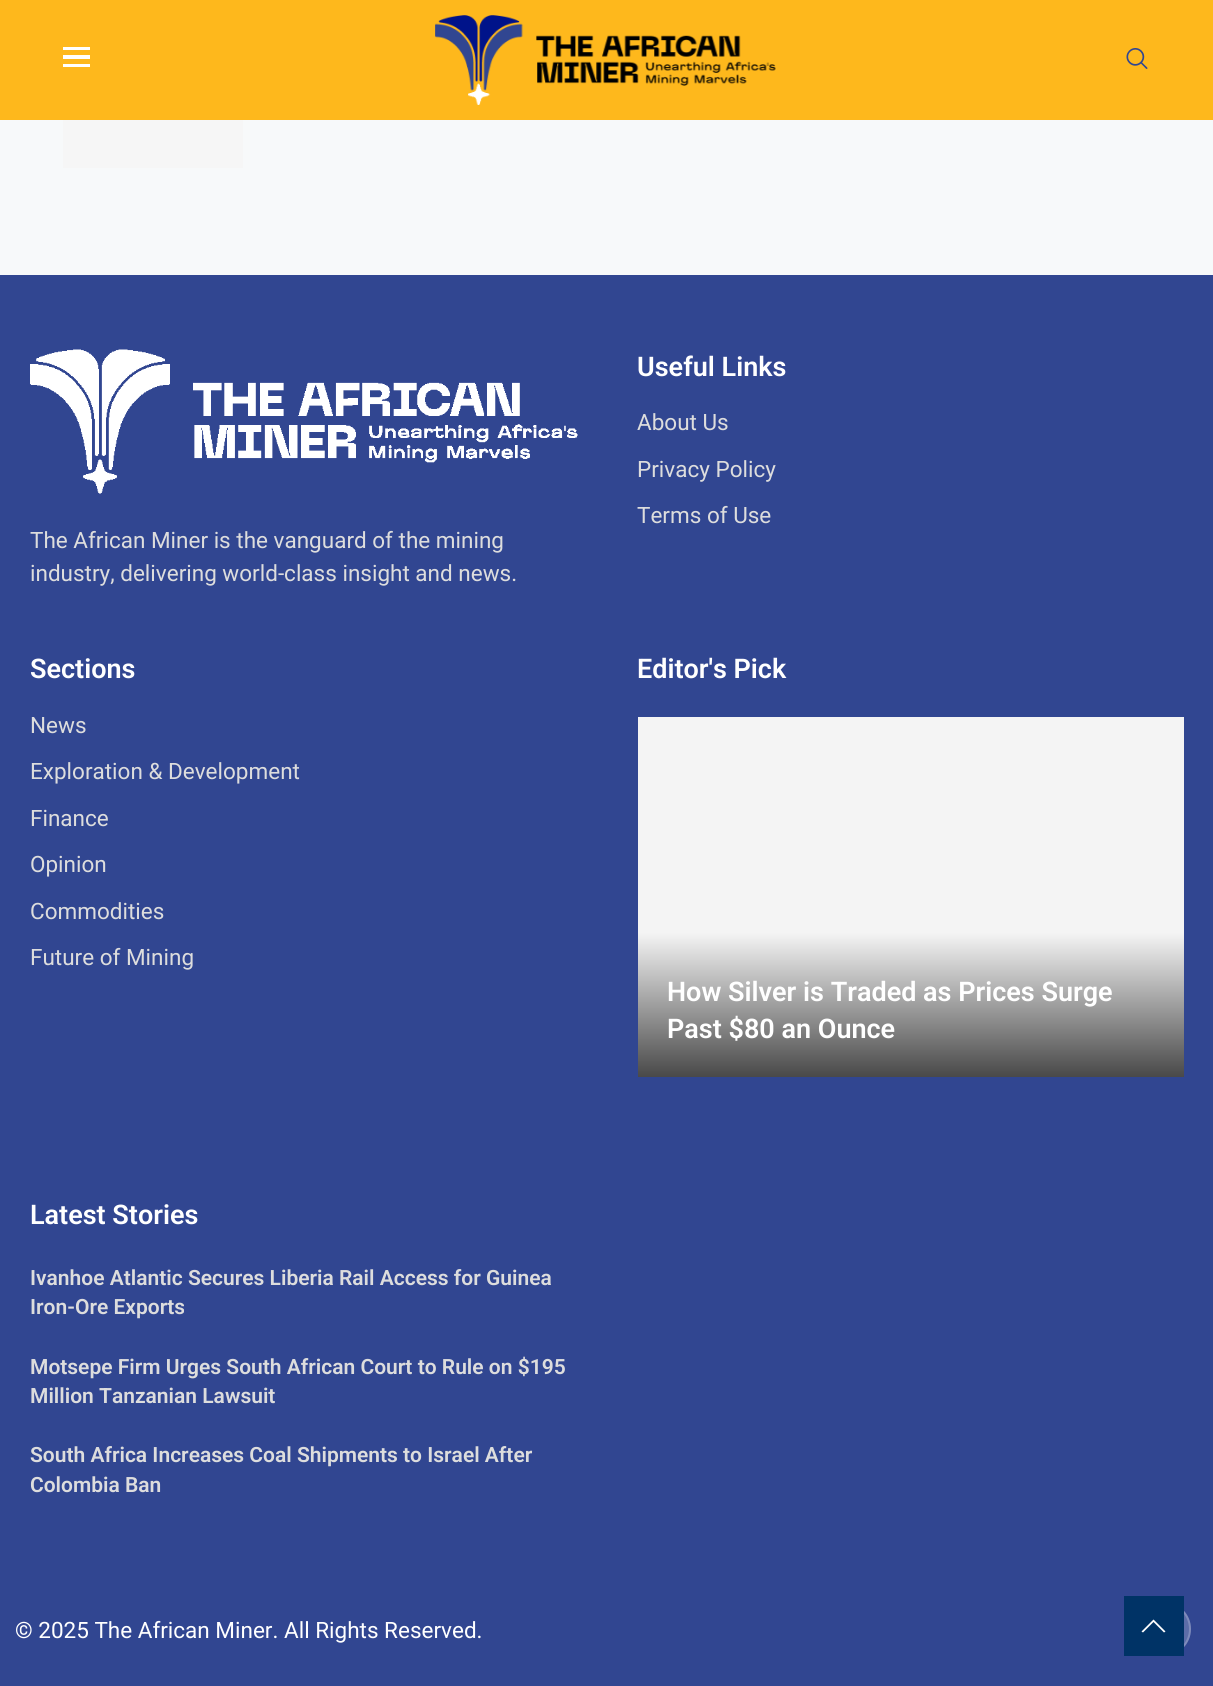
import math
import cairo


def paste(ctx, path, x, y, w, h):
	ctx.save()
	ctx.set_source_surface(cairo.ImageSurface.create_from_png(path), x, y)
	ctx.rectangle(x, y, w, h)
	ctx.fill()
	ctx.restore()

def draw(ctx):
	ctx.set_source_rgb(0.965, 0.973, 0.98)
	ctx.paint()
	ctx.set_source_rgb(0.996, 0.722, 0.11)
	ctx.rectangle(0, 0, 1213, 120)
	ctx.fill()
	ctx.set_source_rgb(1, 1, 1)
	ctx.rectangle(63, 47, 27, 3)
	ctx.rectangle(63, 55, 27, 4)
	ctx.rectangle(63, 64, 27, 3)
	ctx.fill()
	paste(ctx, 'media/1.png', 435, 15, 341, 90)
	paste(ctx, 'media/2.png', 1126, 48, 22, 21)
	ctx.set_source_rgb(0.961, 0.961, 0.961)
	ctx.rectangle(63, 120, 180, 48)
	ctx.fill()
	ctx.set_source_rgb(0.192, 0.275, 0.569)
	ctx.rectangle(0, 275, 1213, 1411)
	ctx.fill()
	ctx.select_font_face('Roboto SemiBold')
	ctx.set_font_size(27)
	ctx.set_source_rgb(1, 1, 1)
	ctx.move_to(637, 376)
	ctx.show_text('Useful Links')
	ctx.select_font_face('Roboto')
	ctx.set_font_size(22.5)
	ctx.set_source_rgb(0.867, 0.867, 0.867)
	for x, y, s in [
		(637, 430, 'About Us'),
		(637, 477, 'Privacy Policy'),
		(637, 523, 'Terms of Use'),
	]:
		ctx.move_to(x, y)
		ctx.show_text(s)
	paste(ctx, 'media/3.png', 30, 349, 548, 145)
	ctx.move_to(30, 548)
	ctx.show_text('The African Miner is the vanguard of the mining')
	ctx.move_to(30, 581)
	ctx.show_text('industry, delivering world-class insight and news.')
	ctx.select_font_face('Roboto SemiBold')
	ctx.set_font_size(27)
	ctx.set_source_rgb(1, 1, 1)
	ctx.move_to(30, 678)
	ctx.show_text('Sections')
	ctx.select_font_face('Roboto')
	ctx.set_font_size(22.5)
	ctx.set_source_rgb(0.867, 0.867, 0.867)
	for x, y, s in [
		(30, 733, 'News'),
		(30, 779, 'Exploration & Development'),
		(30, 826, 'Finance'),
		(30, 872, 'Opinion'),
		(30, 919, 'Commodities'),
		(30, 965, 'Future of Mining'),
	]:
		ctx.move_to(x, y)
		ctx.show_text(s)
	ctx.select_font_face('Roboto SemiBold')
	ctx.set_font_size(27)
	ctx.set_source_rgb(1, 1, 1)
	ctx.move_to(637, 678)
	ctx.show_text('Editor\'s Pick')
	gradient = cairo.LinearGradient(911, 717, 911, 1077)
	gradient.add_color_stop_rgba(0.6, 0.957, 0.957, 0.957, 1)
	gradient.add_color_stop_rgba(1, 0.286, 0.286, 0.286, 1)
	ctx.set_source(gradient)
	ctx.rectangle(638, 717, 546, 360)
	ctx.fill()
	ctx.set_source_rgb(1, 1, 1)
	for x, y, s in [
		(667, 1001, 'How Silver is Traded as Prices Surge'),
		(667, 1038, 'Past $80 an Ounce'),
		(30, 1224, 'Latest Stories'),
	]:
		ctx.move_to(x, y)
		ctx.show_text(s)
	ctx.set_font_size(21)
	ctx.set_source_rgb(0.867, 0.867, 0.867)
	for x, y, s in [
		(30, 1285, 'Ivanhoe Atlantic Secures Liberia Rail Access for Guinea'),
		(30, 1314, 'Iron-Ore Exports'),
		(30, 1374, 'Motsepe Firm Urges South African Court to Rule on $195'),
		(30, 1403, 'Million Tanzanian Lawsuit'),
		(30, 1462, 'South Africa Increases Coal Shipments to Israel After'),
		(30, 1492, 'Colombia Ban'),
	]:
		ctx.move_to(x, y)
		ctx.show_text(s)
	ctx.select_font_face('Roboto')
	ctx.set_font_size(22.5)
	ctx.set_source_rgb(1, 1, 1)
	ctx.move_to(15, 1638)
	ctx.show_text('© 2025 The African Miner. All Rights Reserved.')
	ctx.set_source_rgb(0.361, 0.427, 0.659)
	ctx.new_path()
	ctx.arc(1164, 1629, 27, 0, 2 * math.pi)
	ctx.fill()
	ctx.arc(1164, 1629, 26, 0, 2 * math.pi)
	ctx.set_source_rgba(1, 1, 1, 0.21)
	ctx.stroke()
	ctx.set_source_rgb(0, 0.2, 0.4)
	ctx.rectangle(1124, 1596, 60, 60)
	ctx.fill()
	ctx.set_source_rgb(1, 1, 1)
	ctx.new_path()
	ctx.move_to(1153.5, 1619.5)
	ctx.line_to(1141.5, 1631.5)
	ctx.line_to(1143, 1632.5)
	ctx.line_to(1153.5, 1622)
	ctx.line_to(1164, 1632.5)
	ctx.line_to(1165.5, 1631.5)
	ctx.close_path()
	ctx.fill()


surface = cairo.ImageSurface(cairo.FORMAT_RGB24, 1213, 1686)
ctx = cairo.Context(surface)
options = cairo.FontOptions()
options.set_hint_metrics(cairo.HINT_METRICS_OFF)
options.set_hint_style(cairo.HINT_STYLE_NONE)
ctx.set_font_options(options)
ctx.set_miter_limit(4)
draw(ctx)
surface.write_to_png('image.png')
